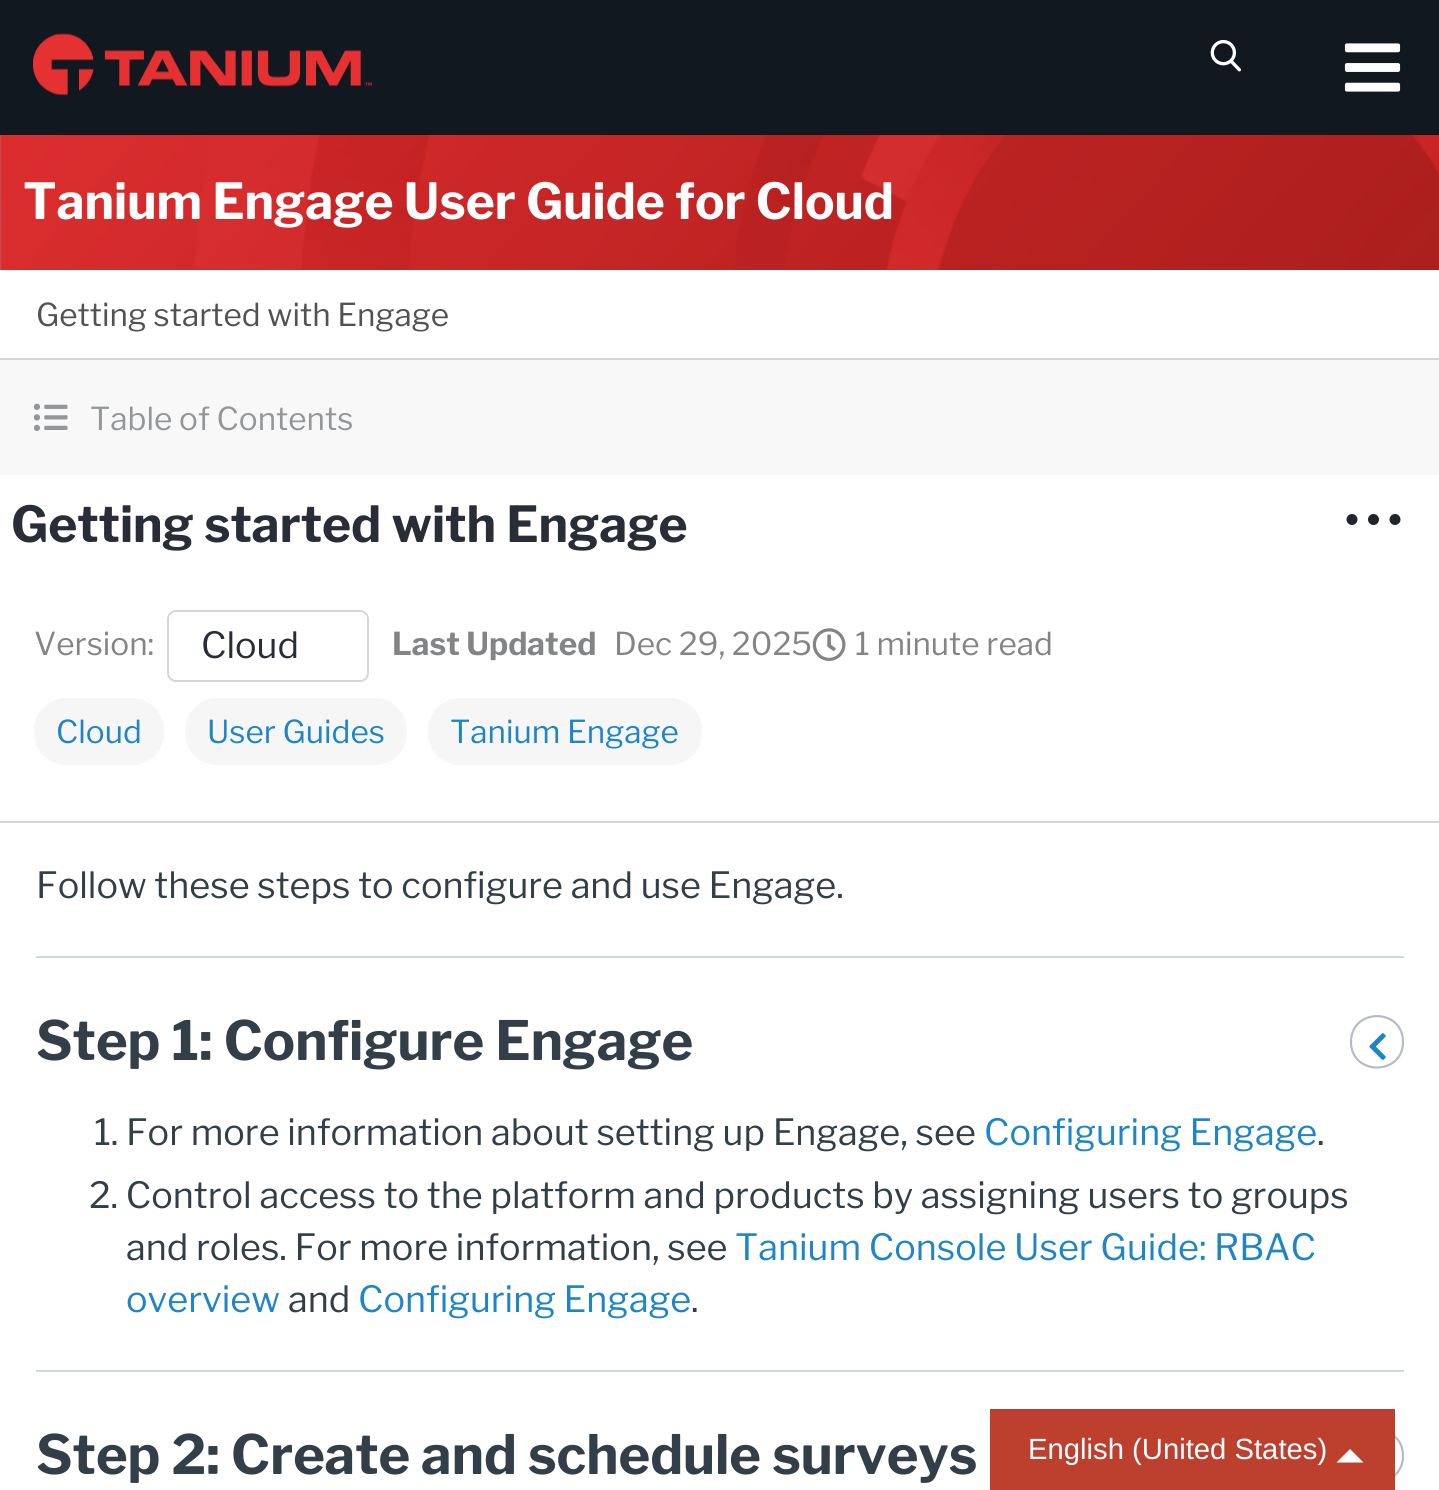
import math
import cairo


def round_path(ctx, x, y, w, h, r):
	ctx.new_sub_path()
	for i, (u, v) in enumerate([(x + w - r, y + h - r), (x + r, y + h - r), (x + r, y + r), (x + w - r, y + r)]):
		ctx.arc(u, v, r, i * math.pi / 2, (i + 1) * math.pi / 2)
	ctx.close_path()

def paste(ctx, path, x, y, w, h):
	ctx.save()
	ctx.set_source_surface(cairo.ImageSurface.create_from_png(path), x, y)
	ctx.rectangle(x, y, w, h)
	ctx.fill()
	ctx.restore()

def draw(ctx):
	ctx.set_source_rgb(1, 1, 1)
	ctx.paint()
	ctx.set_source_rgb(0.071, 0.094, 0.125)
	ctx.rectangle(0, 0, 1439, 135)
	ctx.fill()
	paste(ctx, 'media/1.png', 33, 33, 339, 63)
	paste(ctx, 'media/2.png', 1210, 39, 31, 33)
	paste(ctx, 'media/3.png', 1344, 43, 57, 49)
	paste(ctx, 'media/4.png', 0, 135, 1439, 135)
	ctx.select_font_face('Libre Franklin', cairo.FONT_SLANT_NORMAL, cairo.FONT_WEIGHT_BOLD)
	ctx.set_font_size(49.5)
	ctx.set_source_rgb(1, 1, 1)
	ctx.move_to(23, 219)
	ctx.show_text('Tanium Engage User Guide for Cloud')
	ctx.set_source_rgb(0.839, 0.839, 0.839)
	ctx.rectangle(0, 358, 1439, 2)
	ctx.fill()
	ctx.select_font_face('Libre Franklin')
	ctx.set_font_size(31.5)
	ctx.set_source_rgb(0.322, 0.322, 0.322)
	ctx.move_to(36, 326)
	ctx.show_text('Getting started with Engage')
	ctx.set_source_rgb(0.969, 0.969, 0.969)
	ctx.rectangle(0, 360, 1439, 115)
	ctx.fill()
	paste(ctx, 'media/5.png', 34, 403, 34, 28)
	ctx.set_source_rgb(0.576, 0.592, 0.604)
	ctx.move_to(90, 430)
	ctx.show_text('Table of Contents')
	ctx.set_source_rgb(0.839, 0.839, 0.839)
	ctx.rectangle(0, 821, 1439, 2)
	ctx.fill()
	ctx.select_font_face('Libre Franklin', cairo.FONT_SLANT_NORMAL, cairo.FONT_WEIGHT_BOLD)
	ctx.set_font_size(49.5)
	ctx.set_source_rgb(0.161, 0.176, 0.22)
	ctx.move_to(11, 542)
	ctx.show_text('Getting started with Engage')
	ctx.set_source_rgb(0.129, 0.145, 0.161)
	ctx.new_path()
	ctx.arc(1352, 519.5, 5.5, 0, 2 * math.pi)
	ctx.fill()
	ctx.arc(1373.5, 519.5, 5.5, 0, 2 * math.pi)
	ctx.fill()
	ctx.arc(1395, 519.5, 5.5, 0, 2 * math.pi)
	ctx.fill()
	ctx.select_font_face('Libre Franklin')
	ctx.set_font_size(31.5)
	ctx.set_source_rgb(0.514, 0.518, 0.525)
	ctx.move_to(34, 655)
	ctx.show_text('Version:')
	round_path(ctx, 168, 611, 200, 70, 8)
	ctx.set_source_rgb(0.839, 0.839, 0.839)
	ctx.stroke()
	ctx.set_font_size(36)
	ctx.set_source_rgb(0.161, 0.176, 0.22)
	ctx.move_to(201, 658)
	ctx.show_text('Cloud')
	ctx.select_font_face('Libre Franklin', cairo.FONT_SLANT_NORMAL, cairo.FONT_WEIGHT_BOLD)
	ctx.set_font_size(31.5)
	ctx.set_source_rgb(0.514, 0.518, 0.525)
	ctx.move_to(392, 655)
	ctx.show_text('Last Updated')
	ctx.select_font_face('Libre Franklin')
	ctx.move_to(614, 655)
	ctx.show_text('Dec 29, 2025')
	paste(ctx, 'media/6.png', 812, 628, 34, 33)
	ctx.move_to(855, 655)
	ctx.show_text('1 minute read')
	ctx.set_source_rgb(0.961, 0.961, 0.961)
	round_path(ctx, 34, 698, 130, 67, 32)
	ctx.fill()
	ctx.set_source_rgb(0.118, 0.522, 0.776)
	ctx.move_to(56, 743)
	ctx.show_text('Cloud')
	ctx.set_source_rgb(0.961, 0.961, 0.961)
	round_path(ctx, 185, 698, 222, 67, 32)
	ctx.fill()
	ctx.set_source_rgb(0.118, 0.522, 0.776)
	ctx.move_to(207, 743)
	ctx.show_text('User Guides')
	ctx.set_source_rgb(0.961, 0.961, 0.961)
	round_path(ctx, 428, 698, 274, 67, 32)
	ctx.fill()
	ctx.set_source_rgb(0.118, 0.522, 0.776)
	ctx.move_to(450, 743)
	ctx.show_text('Tanium Engage')
	ctx.set_font_size(36)
	ctx.set_source_rgb(0.196, 0.243, 0.282)
	ctx.move_to(36, 898)
	ctx.show_text('Follow these steps to configure and use Engage.')
	ctx.set_source_rgb(0.808, 0.843, 0.886)
	ctx.rectangle(36, 956, 1368, 2)
	ctx.fill()
	ctx.select_font_face('Libre Franklin', cairo.FONT_SLANT_NORMAL, cairo.FONT_WEIGHT_BOLD)
	ctx.set_font_size(54)
	ctx.set_source_rgb(0.196, 0.243, 0.282)
	ctx.move_to(36, 1060)
	ctx.show_text('Step 1: Configure Engage')
	ctx.new_path()
	ctx.move_to(1403, 1042)
	ctx.curve_to(1403, 1076, 1351, 1076, 1351, 1042)
	ctx.curve_to(1351, 1007.5, 1403, 1007.5, 1403, 1042)
	ctx.close_path()
	ctx.set_source_rgb(0.718, 0.733, 0.784)
	ctx.set_line_width(2.2)
	ctx.stroke()
	paste(ctx, 'media/7.png', 1369, 1033, 17, 27)
	ctx.select_font_face('Libre Franklin')
	ctx.set_font_size(36)
	ctx.set_source_rgb(0.196, 0.243, 0.282)
	ctx.move_to(94, 1145)
	ctx.show_text('1. For more information about setting up Engage, see')
	ctx.set_source_rgb(0.118, 0.522, 0.776)
	ctx.move_to(984, 1145)
	ctx.show_text('Configuring Engage')
	ctx.set_source_rgb(0.196, 0.243, 0.282)
	for x, y, s in [
		(1317, 1145, '.'),
		(89, 1208, '2. Control access to the platform and products by assigning users to groups'),
		(126, 1260, 'and roles. For more information, see'),
	]:
		ctx.move_to(x, y)
		ctx.show_text(s)
	ctx.set_source_rgb(0.118, 0.522, 0.776)
	ctx.move_to(735, 1260)
	ctx.show_text('Tanium Console User Guide: RBAC')
	ctx.move_to(126, 1312)
	ctx.show_text('overview')
	ctx.set_source_rgb(0.196, 0.243, 0.282)
	ctx.move_to(288, 1312)
	ctx.show_text('and')
	ctx.set_source_rgb(0.118, 0.522, 0.776)
	ctx.move_to(358, 1312)
	ctx.show_text('Configuring Engage')
	ctx.set_source_rgb(0.196, 0.243, 0.282)
	ctx.move_to(691, 1312)
	ctx.show_text('.')
	ctx.set_source_rgb(0.808, 0.843, 0.886)
	ctx.rectangle(36, 1370, 1368, 2)
	ctx.fill()
	ctx.select_font_face('Libre Franklin', cairo.FONT_SLANT_NORMAL, cairo.FONT_WEIGHT_BOLD)
	ctx.set_font_size(54)
	ctx.set_source_rgb(0.196, 0.243, 0.282)
	ctx.move_to(36, 1474)
	ctx.show_text('Step 2: Create and schedule surveys')
	ctx.new_path()
	ctx.move_to(1403, 1456)
	ctx.curve_to(1403, 1490, 1351, 1490, 1351, 1456)
	ctx.curve_to(1351, 1421.5, 1403, 1421.5, 1403, 1456)
	ctx.close_path()
	ctx.set_source_rgb(0.718, 0.733, 0.784)
	ctx.stroke()
	ctx.set_source_rgb(0.741, 0.247, 0.18)
	ctx.rectangle(990, 1409, 405, 81)
	ctx.fill()
	ctx.select_font_face('Liberation Sans')
	ctx.set_font_size(29.25)
	ctx.set_source_rgb(1, 1, 1)
	ctx.move_to(1028, 1459)
	ctx.show_text('English (United States)')
	ctx.new_path()
	ctx.move_to(1363.5, 1462.5)
	ctx.line_to(1336.5, 1462.5)
	ctx.line_to(1350, 1449)
	ctx.close_path()
	ctx.fill()


surface = cairo.ImageSurface(cairo.FORMAT_RGB24, 1439, 1490)
ctx = cairo.Context(surface)
options = cairo.FontOptions()
options.set_hint_metrics(cairo.HINT_METRICS_OFF)
options.set_hint_style(cairo.HINT_STYLE_NONE)
ctx.set_font_options(options)
ctx.set_miter_limit(4)
draw(ctx)
surface.write_to_png('image.png')
